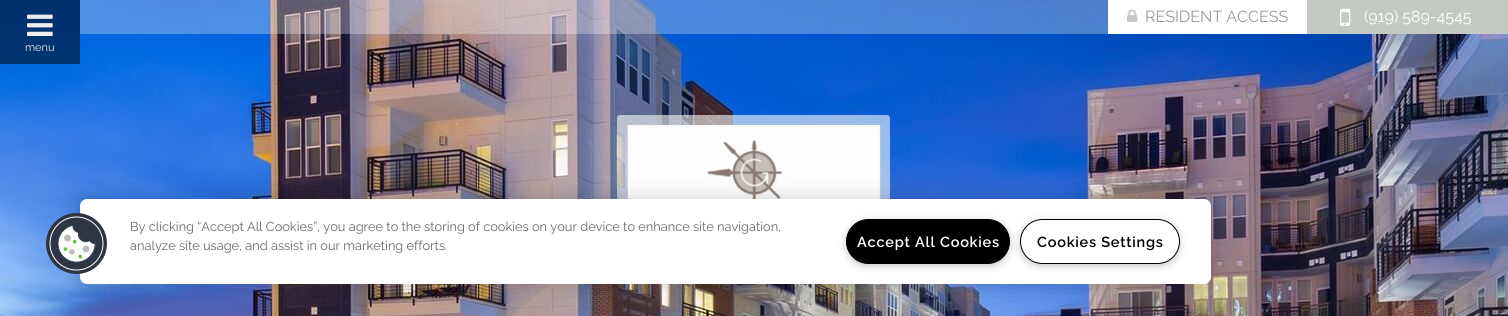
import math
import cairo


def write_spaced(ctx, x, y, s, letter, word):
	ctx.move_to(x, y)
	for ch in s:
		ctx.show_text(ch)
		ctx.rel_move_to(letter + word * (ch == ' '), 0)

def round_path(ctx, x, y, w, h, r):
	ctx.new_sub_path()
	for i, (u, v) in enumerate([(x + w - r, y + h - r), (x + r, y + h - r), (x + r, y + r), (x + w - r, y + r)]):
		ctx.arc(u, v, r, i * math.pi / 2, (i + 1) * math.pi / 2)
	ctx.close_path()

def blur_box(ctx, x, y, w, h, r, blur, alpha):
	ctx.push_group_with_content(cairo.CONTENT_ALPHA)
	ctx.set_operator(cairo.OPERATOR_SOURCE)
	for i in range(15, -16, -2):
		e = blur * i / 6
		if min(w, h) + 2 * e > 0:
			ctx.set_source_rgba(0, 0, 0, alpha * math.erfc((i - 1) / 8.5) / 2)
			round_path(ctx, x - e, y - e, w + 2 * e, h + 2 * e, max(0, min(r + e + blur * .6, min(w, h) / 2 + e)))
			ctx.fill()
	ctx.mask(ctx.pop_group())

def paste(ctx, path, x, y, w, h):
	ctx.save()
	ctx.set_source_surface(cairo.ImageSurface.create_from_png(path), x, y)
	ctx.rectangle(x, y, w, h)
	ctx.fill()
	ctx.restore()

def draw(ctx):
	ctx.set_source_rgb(1, 1, 1)
	ctx.paint()
	paste(ctx, 'media/1.png', 0, 0, 1508, 316)
	ctx.set_source_rgba(0.98, 0.98, 0.98, 0.6)
	round_path(ctx, 617, 115, 273, 150, 3)
	ctx.fill()
	paste(ctx, 'media/2.png', 627, 125, 254, 74)
	ctx.set_source_rgba(1, 1, 1, 0.3)
	ctx.rectangle(80, 0, 1028, 34)
	ctx.fill()
	ctx.set_source_rgb(0.773, 0.788, 0.769)
	ctx.rectangle(1307, 0, 201, 34)
	ctx.fill()
	ctx.set_source_rgb(1, 1, 1)
	ctx.rectangle(1108, 0, 199, 34)
	ctx.fill()
	paste(ctx, 'media/3.png', 1127, 9, 11, 13)
	ctx.select_font_face('Raleway')
	ctx.set_font_size(16)
	ctx.set_source_rgb(0.6, 0.6, 0.6)
	ctx.move_to(1145, 22)
	ctx.show_text('RESIDENT ACCESS')
	paste(ctx, 'media/4.png', 1340, 8, 11, 18)
	ctx.set_source_rgb(1, 1, 1)
	ctx.move_to(1364, 22)
	ctx.show_text('(919) 589-4545')
	ctx.set_source_rgba(0, 0, 0, 0.5)
	ctx.rectangle(0, 0, 80, 64)
	ctx.fill()
	paste(ctx, 'media/5.png', 27, 14, 26, 22)
	ctx.set_font_size(11)
	ctx.set_source_rgb(0.933, 0.933, 0.933)
	ctx.move_to(25, 51)
	ctx.show_text('menu')
	ctx.set_source_rgb(0, 0, 0)
	blur_box(ctx, 80, 199, 1131, 85, 7, 9, 0.2)
	ctx.set_source_rgb(1, 1, 1)
	round_path(ctx, 80, 199, 1131, 85, 7)
	ctx.fill()
	paste(ctx, 'media/6.png', 46, 213, 61, 61)
	ctx.set_font_size(12.8)
	ctx.set_source_rgb(0.412, 0.412, 0.412)
	ctx.move_to(130, 231)
	ctx.show_text('By clicking “Accept All Cookies”, you agree to the storing of cookies on your device to enhance site navigation,')
	ctx.move_to(130, 250)
	ctx.show_text('analyze site usage, and assist in our marketing efforts.')
	ctx.set_source_rgb(0.6, 0.6, 0.6)
	blur_box(ctx, 849, 224, 158, 39, 19.5, 5, 1)
	ctx.set_source_rgb(0, 0, 0)
	round_path(ctx, 846.5, 219.5, 163, 44, 22)
	ctx.fill_preserve()
	ctx.set_line_width(1)
	ctx.stroke()
	ctx.select_font_face('Raleway SemiBold')
	ctx.set_font_size(14.5)
	ctx.set_source_rgb(1, 1, 1)
	write_spaced(ctx, 857, 247, 'Accept All Cookies', 0.75, 0)
	ctx.set_source_rgb(0.6, 0.6, 0.6)
	blur_box(ctx, 1023, 224, 154, 39, 19.5, 5, 1)
	ctx.set_source_rgb(1, 1, 1)
	round_path(ctx, 1020.5, 219.5, 159, 44, 22)
	ctx.fill_preserve()
	ctx.set_source_rgb(0, 0, 0)
	ctx.stroke()
	write_spaced(ctx, 1037, 247, 'Cookies Settings', 0.75, 0)


surface = cairo.ImageSurface(cairo.FORMAT_RGB24, 1508, 316)
ctx = cairo.Context(surface)
options = cairo.FontOptions()
options.set_hint_metrics(cairo.HINT_METRICS_OFF)
options.set_hint_style(cairo.HINT_STYLE_NONE)
ctx.set_font_options(options)
ctx.set_miter_limit(4)
draw(ctx)
surface.write_to_png('image.png')
